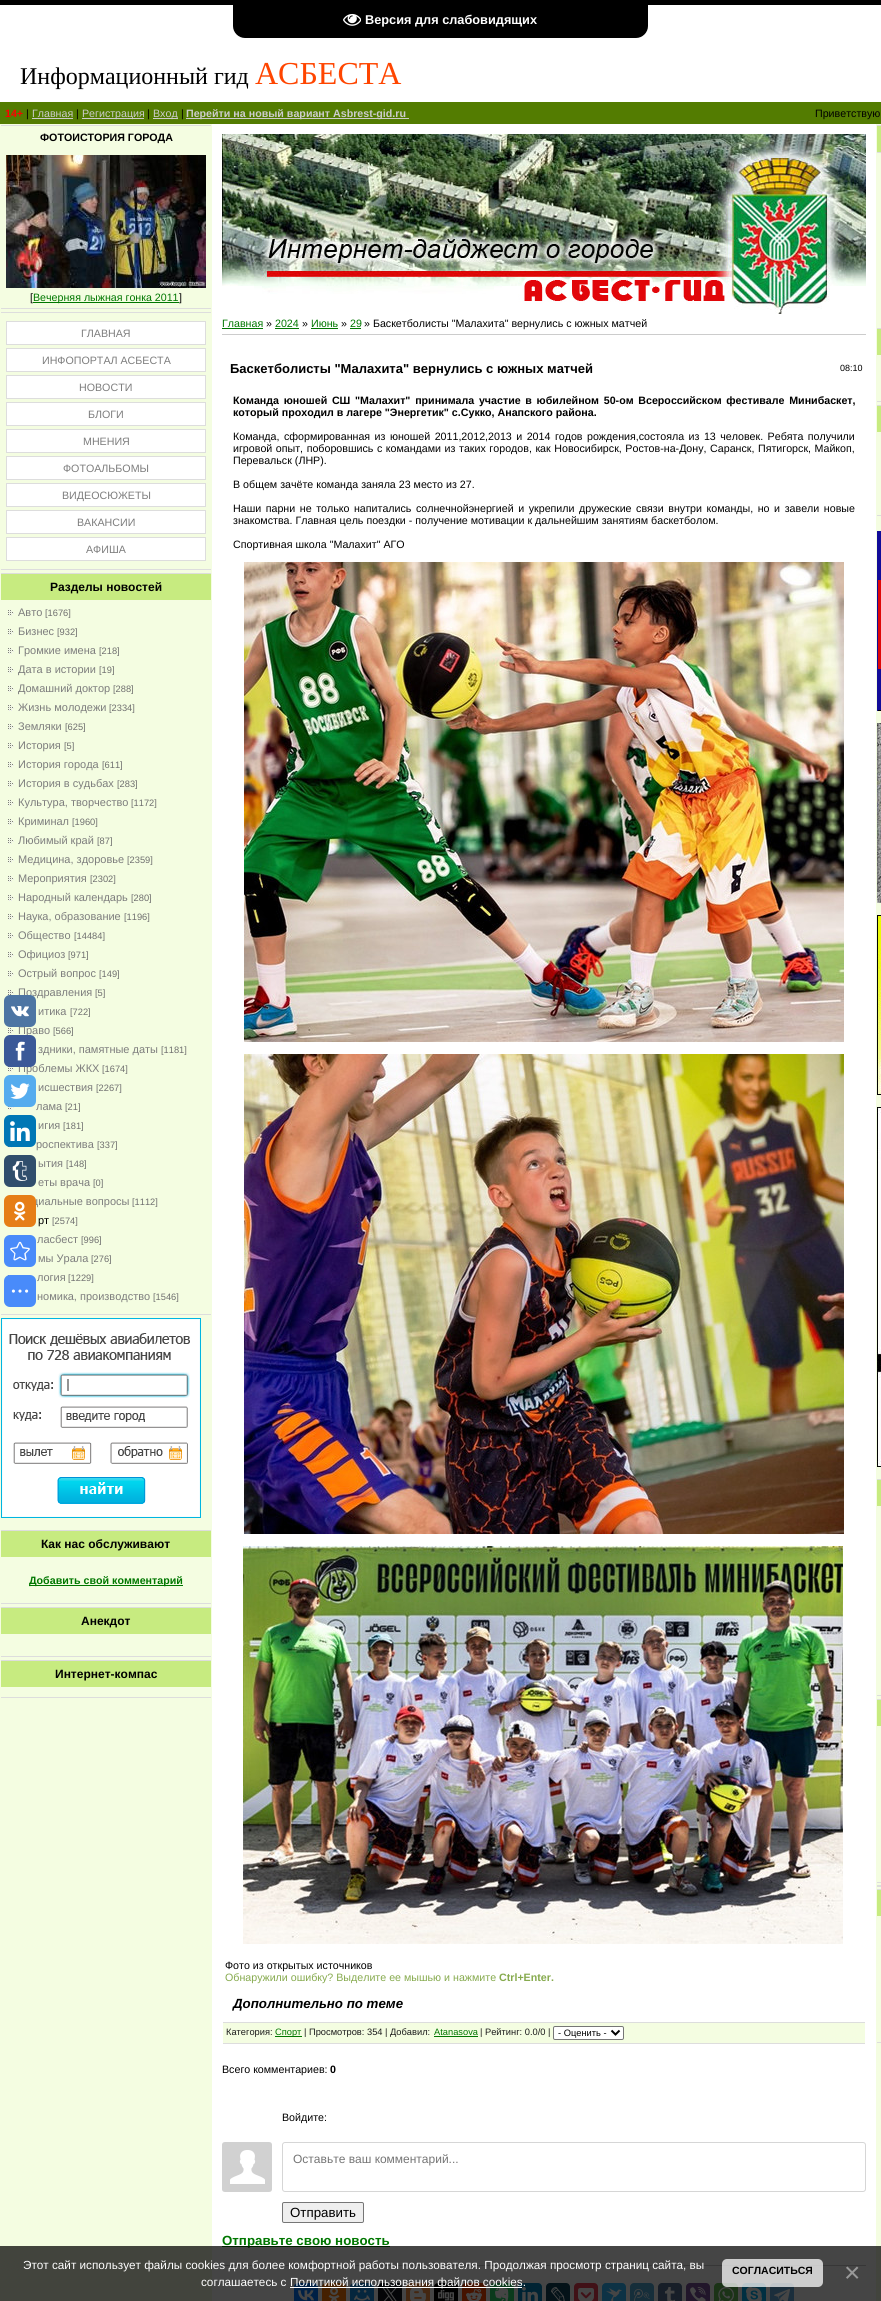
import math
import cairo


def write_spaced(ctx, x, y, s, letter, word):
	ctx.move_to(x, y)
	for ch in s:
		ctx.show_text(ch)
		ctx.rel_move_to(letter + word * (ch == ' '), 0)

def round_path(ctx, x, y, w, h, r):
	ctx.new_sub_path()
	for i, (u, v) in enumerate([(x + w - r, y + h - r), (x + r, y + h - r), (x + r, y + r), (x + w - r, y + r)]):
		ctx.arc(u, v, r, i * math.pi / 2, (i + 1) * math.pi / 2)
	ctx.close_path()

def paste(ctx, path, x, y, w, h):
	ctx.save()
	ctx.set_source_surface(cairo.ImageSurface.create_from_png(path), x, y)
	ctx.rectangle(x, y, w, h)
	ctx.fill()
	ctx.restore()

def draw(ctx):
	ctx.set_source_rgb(1, 1, 1)
	ctx.paint()
	ctx.set_source_rgb(0, 0, 0)
	ctx.rectangle(0, 0, 881, 5)
	ctx.fill()
	ctx.new_path()
	ctx.move_to(233, 0)
	ctx.line_to(648, 0)
	ctx.line_to(648, 26)
	ctx.curve_to(648, 32.5, 642.5, 38, 636, 38)
	ctx.line_to(245, 38)
	ctx.curve_to(238.5, 38, 233, 32.5, 233, 26)
	ctx.close_path()
	ctx.fill()
	paste(ctx, 'media/1.png', 343, 13, 18, 13)
	ctx.select_font_face('Liberation Sans', cairo.FONT_SLANT_NORMAL, cairo.FONT_WEIGHT_BOLD)
	ctx.set_font_size(12.75)
	ctx.set_source_rgb(1, 1, 1)
	ctx.move_to(365, 24)
	ctx.show_text('Версия для слабовидящих')
	ctx.select_font_face('Liberation Serif')
	ctx.set_font_size(24)
	ctx.set_source_rgb(0, 0, 0)
	ctx.move_to(20, 84)
	ctx.show_text('Информационный гид')
	ctx.set_font_size(32)
	ctx.set_source_rgb(1, 0.271, 0)
	ctx.move_to(255, 84)
	ctx.show_text('АСБЕСТА')
	ctx.set_source_rgb(0.325, 0.486, 0.004)
	ctx.rectangle(0, 102, 881, 22)
	ctx.fill()
	ctx.select_font_face('Liberation Sans', cairo.FONT_SLANT_NORMAL, cairo.FONT_WEIGHT_BOLD)
	ctx.set_font_size(10.67)
	ctx.set_source_rgb(1, 0, 0)
	ctx.move_to(5, 117)
	ctx.show_text('14+')
	ctx.select_font_face('Liberation Sans')
	ctx.set_source_rgb(0, 0, 0)
	ctx.move_to(26, 117)
	ctx.show_text('|')
	ctx.set_source_rgb(0.8, 0.8, 0.8)
	ctx.move_to(32, 117)
	ctx.show_text('Главная')
	ctx.rectangle(32, 118, 41, 1)
	ctx.fill()
	ctx.set_source_rgb(0, 0, 0)
	ctx.move_to(76, 117)
	ctx.show_text('|')
	ctx.set_source_rgb(0.8, 0.8, 0.8)
	ctx.rectangle(82, 118, 62, 1)
	ctx.fill()
	ctx.move_to(82, 117)
	ctx.show_text('Регистрация')
	ctx.set_source_rgb(0, 0, 0)
	ctx.move_to(147, 117)
	ctx.show_text('|')
	ctx.set_source_rgb(0.8, 0.8, 0.8)
	ctx.rectangle(153, 118, 25, 1)
	ctx.fill()
	ctx.move_to(153, 117)
	ctx.show_text('Вход')
	ctx.set_source_rgb(0, 0, 0)
	ctx.move_to(181, 117)
	ctx.show_text('|')
	ctx.set_source_rgb(0.8, 0.8, 0.8)
	ctx.rectangle(186, 118, 223, 1)
	ctx.fill()
	ctx.select_font_face('Liberation Sans', cairo.FONT_SLANT_NORMAL, cairo.FONT_WEIGHT_BOLD)
	ctx.move_to(186, 117)
	ctx.show_text('Перейти на новый вариант Asbrest-gid.ru')
	ctx.select_font_face('Liberation Sans')
	ctx.set_source_rgb(0, 0, 0)
	ctx.move_to(815, 117)
	ctx.show_text('Приветствую')
	ctx.set_source_rgb(0.957, 0.992, 0.882)
	ctx.rectangle(0, 124, 212, 2177)
	ctx.fill()
	ctx.set_source_rgb(0.867, 0.867, 0.867)
	ctx.rectangle(1, 125, 210, 1)
	ctx.rectangle(1, 308, 210, 1)
	ctx.fill()
	ctx.select_font_face('Liberation Sans', cairo.FONT_SLANT_NORMAL, cairo.FONT_WEIGHT_BOLD)
	ctx.set_source_rgb(0, 0, 0)
	ctx.move_to(40, 141)
	ctx.show_text('ФОТОИСТОРИЯ ГОРОДА')
	paste(ctx, 'media/2.png', 6, 155, 200, 133)
	ctx.select_font_face('Liberation Sans')
	ctx.move_to(30, 301)
	ctx.show_text('[')
	ctx.set_source_rgb(0, 0.467, 0)
	ctx.rectangle(33, 302, 146, 1)
	ctx.fill()
	ctx.move_to(33, 301)
	ctx.show_text('Вечерняя лыжная гонка 2011')
	ctx.set_source_rgb(0, 0, 0)
	ctx.move_to(179, 301)
	ctx.show_text(']')
	ctx.set_source_rgb(0.867, 0.867, 0.867)
	ctx.rectangle(1, 312, 210, 1)
	ctx.fill()
	ctx.rectangle(1, 569, 210, 1)
	ctx.fill()
	ctx.set_source_rgb(1, 1, 1)
	ctx.rectangle(6.5, 321.5, 199, 23)
	ctx.fill_preserve()
	ctx.set_source_rgb(0.867, 0.867, 0.867)
	ctx.set_line_width(1)
	ctx.stroke()
	ctx.set_source_rgb(0.49, 0.49, 0.49)
	ctx.move_to(81, 337)
	ctx.show_text('ГЛАВНАЯ')
	ctx.set_source_rgb(1, 1, 1)
	ctx.rectangle(6.5, 348.5, 199, 23)
	ctx.fill_preserve()
	ctx.set_source_rgb(0.867, 0.867, 0.867)
	ctx.stroke()
	ctx.set_source_rgb(0.49, 0.49, 0.49)
	ctx.move_to(42, 364)
	ctx.show_text('ИНФОПОРТАЛ АСБЕСТА')
	ctx.set_source_rgb(1, 1, 1)
	ctx.rectangle(6.5, 375.5, 199, 23)
	ctx.fill_preserve()
	ctx.set_source_rgb(0.867, 0.867, 0.867)
	ctx.stroke()
	ctx.set_source_rgb(0.49, 0.49, 0.49)
	ctx.move_to(79, 391)
	ctx.show_text('НОВОСТИ')
	ctx.set_source_rgb(1, 1, 1)
	ctx.rectangle(6.5, 402.5, 199, 23)
	ctx.fill_preserve()
	ctx.set_source_rgb(0.867, 0.867, 0.867)
	ctx.stroke()
	ctx.set_source_rgb(0.49, 0.49, 0.49)
	ctx.move_to(88, 418)
	ctx.show_text('БЛОГИ')
	ctx.set_source_rgb(1, 1, 1)
	ctx.rectangle(6.5, 429.5, 199, 23)
	ctx.fill_preserve()
	ctx.set_source_rgb(0.867, 0.867, 0.867)
	ctx.stroke()
	ctx.set_source_rgb(0.49, 0.49, 0.49)
	ctx.move_to(83, 445)
	ctx.show_text('МНЕНИЯ')
	ctx.set_source_rgb(1, 1, 1)
	ctx.rectangle(6.5, 456.5, 199, 23)
	ctx.fill_preserve()
	ctx.set_source_rgb(0.867, 0.867, 0.867)
	ctx.stroke()
	ctx.set_source_rgb(0.49, 0.49, 0.49)
	ctx.move_to(63, 472)
	ctx.show_text('ФОТОАЛЬБОМЫ')
	ctx.set_source_rgb(1, 1, 1)
	ctx.rectangle(6.5, 483.5, 199, 23)
	ctx.fill_preserve()
	ctx.set_source_rgb(0.867, 0.867, 0.867)
	ctx.stroke()
	ctx.set_source_rgb(0.49, 0.49, 0.49)
	ctx.move_to(62, 499)
	ctx.show_text('ВИДЕОСЮЖЕТЫ')
	ctx.set_source_rgb(1, 1, 1)
	ctx.rectangle(6.5, 510.5, 199, 23)
	ctx.fill_preserve()
	ctx.set_source_rgb(0.867, 0.867, 0.867)
	ctx.stroke()
	ctx.set_source_rgb(0.49, 0.49, 0.49)
	ctx.move_to(77, 526)
	ctx.show_text('ВАКАНСИИ')
	ctx.set_source_rgb(1, 1, 1)
	ctx.rectangle(6.5, 537.5, 199, 23)
	ctx.fill_preserve()
	ctx.set_source_rgb(0.867, 0.867, 0.867)
	ctx.stroke()
	ctx.set_source_rgb(0.49, 0.49, 0.49)
	ctx.move_to(86, 553)
	ctx.show_text('АФИША')
	ctx.set_source_rgb(0.867, 0.867, 0.867)
	ctx.rectangle(1, 573, 210, 1)
	ctx.rectangle(1, 1314, 210, 1)
	ctx.fill()
	ctx.set_source_rgb(0.78, 0.918, 0.502)
	ctx.rectangle(1, 574, 210, 26)
	ctx.fill()
	ctx.select_font_face('Liberation Sans', cairo.FONT_SLANT_NORMAL, cairo.FONT_WEIGHT_BOLD)
	ctx.set_font_size(12)
	ctx.set_source_rgb(0, 0, 0)
	ctx.move_to(50, 591)
	ctx.show_text('Разделы новостей')
	paste(ctx, 'media/3.png', 8, 610, 6, 6)
	ctx.select_font_face('Liberation Sans')
	ctx.set_font_size(11)
	ctx.set_source_rgb(0.49, 0.49, 0.49)
	ctx.move_to(18, 616)
	ctx.show_text('Авто')
	ctx.set_font_size(9.3)
	ctx.set_source_rgb(0.431, 0.431, 0.431)
	ctx.move_to(45, 616)
	ctx.show_text('[1676]')
	paste(ctx, 'media/3.png', 8, 629, 6, 6)
	ctx.set_font_size(11)
	ctx.set_source_rgb(0.49, 0.49, 0.49)
	ctx.move_to(18, 635)
	ctx.show_text('Бизнес')
	ctx.set_font_size(9.3)
	ctx.set_source_rgb(0.431, 0.431, 0.431)
	ctx.move_to(57, 635)
	ctx.show_text('[932]')
	paste(ctx, 'media/3.png', 8, 648, 6, 6)
	ctx.set_font_size(11)
	ctx.set_source_rgb(0.49, 0.49, 0.49)
	ctx.move_to(18, 654)
	ctx.show_text('Громкие имена')
	ctx.set_font_size(9.3)
	ctx.set_source_rgb(0.431, 0.431, 0.431)
	ctx.move_to(99, 654)
	ctx.show_text('[218]')
	paste(ctx, 'media/3.png', 8, 667, 6, 6)
	ctx.set_font_size(11)
	ctx.set_source_rgb(0.49, 0.49, 0.49)
	ctx.move_to(18, 673)
	ctx.show_text('Дата в истории')
	ctx.set_font_size(9.3)
	ctx.set_source_rgb(0.431, 0.431, 0.431)
	ctx.move_to(99, 673)
	ctx.show_text('[19]')
	paste(ctx, 'media/3.png', 8, 686, 6, 6)
	ctx.set_font_size(11)
	ctx.set_source_rgb(0.49, 0.49, 0.49)
	ctx.move_to(18, 692)
	ctx.show_text('Домашний доктор')
	ctx.set_font_size(9.3)
	ctx.set_source_rgb(0.431, 0.431, 0.431)
	ctx.move_to(113, 692)
	ctx.show_text('[288]')
	paste(ctx, 'media/3.png', 8, 705, 6, 6)
	ctx.set_font_size(11)
	ctx.set_source_rgb(0.49, 0.49, 0.49)
	ctx.move_to(18, 711)
	ctx.show_text('Жизнь молодежи')
	ctx.set_font_size(9.3)
	ctx.set_source_rgb(0.431, 0.431, 0.431)
	ctx.move_to(109, 711)
	ctx.show_text('[2334]')
	paste(ctx, 'media/3.png', 8, 724, 6, 6)
	ctx.set_font_size(11)
	ctx.set_source_rgb(0.49, 0.49, 0.49)
	ctx.move_to(18, 730)
	ctx.show_text('Земляки')
	ctx.set_font_size(9.3)
	ctx.set_source_rgb(0.431, 0.431, 0.431)
	ctx.move_to(65, 730)
	ctx.show_text('[625]')
	paste(ctx, 'media/3.png', 8, 743, 6, 6)
	ctx.set_font_size(11)
	ctx.set_source_rgb(0.49, 0.49, 0.49)
	ctx.move_to(18, 749)
	ctx.show_text('История')
	ctx.set_font_size(9.3)
	ctx.set_source_rgb(0.431, 0.431, 0.431)
	ctx.move_to(64, 749)
	ctx.show_text('[5]')
	paste(ctx, 'media/3.png', 8, 762, 6, 6)
	ctx.set_font_size(11)
	ctx.set_source_rgb(0.49, 0.49, 0.49)
	ctx.move_to(18, 768)
	ctx.show_text('История города')
	ctx.set_font_size(9.3)
	ctx.set_source_rgb(0.431, 0.431, 0.431)
	ctx.move_to(102, 768)
	ctx.show_text('[611]')
	paste(ctx, 'media/3.png', 8, 781, 6, 6)
	ctx.set_font_size(11)
	ctx.set_source_rgb(0.49, 0.49, 0.49)
	ctx.move_to(18, 787)
	ctx.show_text('История в судьбах')
	ctx.set_font_size(9.3)
	ctx.set_source_rgb(0.431, 0.431, 0.431)
	ctx.move_to(117, 787)
	ctx.show_text('[283]')
	paste(ctx, 'media/3.png', 8, 800, 6, 6)
	ctx.set_font_size(11)
	ctx.set_source_rgb(0.49, 0.49, 0.49)
	ctx.move_to(18, 806)
	ctx.show_text('Культура, творчество')
	ctx.set_font_size(9.3)
	ctx.set_source_rgb(0.431, 0.431, 0.431)
	ctx.move_to(131, 806)
	ctx.show_text('[1172]')
	paste(ctx, 'media/3.png', 8, 819, 6, 6)
	ctx.set_font_size(11)
	ctx.set_source_rgb(0.49, 0.49, 0.49)
	ctx.move_to(18, 825)
	ctx.show_text('Криминал')
	ctx.set_font_size(9.3)
	ctx.set_source_rgb(0.431, 0.431, 0.431)
	ctx.move_to(72, 825)
	ctx.show_text('[1960]')
	paste(ctx, 'media/3.png', 8, 838, 6, 6)
	ctx.set_font_size(11)
	ctx.set_source_rgb(0.49, 0.49, 0.49)
	ctx.move_to(18, 844)
	ctx.show_text('Любимый край')
	ctx.set_font_size(9.3)
	ctx.set_source_rgb(0.431, 0.431, 0.431)
	ctx.move_to(97, 844)
	ctx.show_text('[87]')
	paste(ctx, 'media/3.png', 8, 857, 6, 6)
	ctx.set_font_size(11)
	ctx.set_source_rgb(0.49, 0.49, 0.49)
	ctx.move_to(18, 863)
	ctx.show_text('Медицина, здоровье')
	ctx.set_font_size(9.3)
	ctx.set_source_rgb(0.431, 0.431, 0.431)
	ctx.move_to(127, 863)
	ctx.show_text('[2359]')
	paste(ctx, 'media/3.png', 8, 876, 6, 6)
	ctx.set_font_size(11)
	ctx.set_source_rgb(0.49, 0.49, 0.49)
	ctx.move_to(18, 882)
	ctx.show_text('Мероприятия')
	ctx.set_font_size(9.3)
	ctx.set_source_rgb(0.431, 0.431, 0.431)
	ctx.move_to(90, 882)
	ctx.show_text('[2302]')
	paste(ctx, 'media/3.png', 8, 895, 6, 6)
	ctx.set_font_size(11)
	ctx.set_source_rgb(0.49, 0.49, 0.49)
	ctx.move_to(18, 901)
	ctx.show_text('Народный календарь')
	ctx.set_font_size(9.3)
	ctx.set_source_rgb(0.431, 0.431, 0.431)
	ctx.move_to(131, 901)
	ctx.show_text('[280]')
	paste(ctx, 'media/3.png', 8, 914, 6, 6)
	ctx.set_font_size(11)
	ctx.set_source_rgb(0.49, 0.49, 0.49)
	ctx.move_to(18, 920)
	ctx.show_text('Наука, образование')
	ctx.set_font_size(9.3)
	ctx.set_source_rgb(0.431, 0.431, 0.431)
	ctx.move_to(124, 920)
	ctx.show_text('[1196]')
	paste(ctx, 'media/3.png', 8, 933, 6, 6)
	ctx.set_font_size(11)
	ctx.set_source_rgb(0.49, 0.49, 0.49)
	ctx.move_to(18, 939)
	ctx.show_text('Общество')
	ctx.set_font_size(9.3)
	ctx.set_source_rgb(0.431, 0.431, 0.431)
	ctx.move_to(74, 939)
	ctx.show_text('[14484]')
	paste(ctx, 'media/3.png', 8, 952, 6, 6)
	ctx.set_font_size(11)
	ctx.set_source_rgb(0.49, 0.49, 0.49)
	ctx.move_to(18, 958)
	ctx.show_text('Официоз')
	ctx.set_font_size(9.3)
	ctx.set_source_rgb(0.431, 0.431, 0.431)
	ctx.move_to(68, 958)
	ctx.show_text('[971]')
	paste(ctx, 'media/3.png', 8, 971, 6, 6)
	ctx.set_font_size(11)
	ctx.set_source_rgb(0.49, 0.49, 0.49)
	ctx.move_to(18, 977)
	ctx.show_text('Острый вопрос')
	ctx.set_font_size(9.3)
	ctx.set_source_rgb(0.431, 0.431, 0.431)
	ctx.move_to(99, 977)
	ctx.show_text('[149]')
	paste(ctx, 'media/3.png', 8, 990, 6, 6)
	ctx.set_font_size(11)
	ctx.set_source_rgb(0.49, 0.49, 0.49)
	ctx.move_to(18, 996)
	ctx.show_text('Поздравления')
	ctx.set_font_size(9.3)
	ctx.set_source_rgb(0.431, 0.431, 0.431)
	ctx.move_to(95, 996)
	ctx.show_text('[5]')
	ctx.set_font_size(11)
	ctx.set_source_rgb(0.49, 0.49, 0.49)
	ctx.move_to(38, 1015)
	ctx.show_text('итика')
	ctx.set_font_size(9.3)
	ctx.set_source_rgb(0.431, 0.431, 0.431)
	ctx.move_to(70, 1015)
	ctx.show_text('[722]')
	paste(ctx, 'media/3.png', 8, 1028, 6, 6)
	ctx.set_font_size(11)
	ctx.set_source_rgb(0.49, 0.49, 0.49)
	ctx.move_to(18, 1034)
	ctx.show_text('Право')
	ctx.set_font_size(9.3)
	ctx.set_source_rgb(0.431, 0.431, 0.431)
	ctx.move_to(53, 1034)
	ctx.show_text('[566]')
	ctx.set_font_size(11)
	ctx.set_source_rgb(0.49, 0.49, 0.49)
	ctx.move_to(38, 1053)
	ctx.show_text('здники, памятные даты')
	ctx.set_font_size(9.3)
	ctx.set_source_rgb(0.431, 0.431, 0.431)
	ctx.move_to(161, 1053)
	ctx.show_text('[1181]')
	paste(ctx, 'media/3.png', 8, 1066, 6, 6)
	ctx.set_font_size(11)
	ctx.set_source_rgb(0.49, 0.49, 0.49)
	ctx.move_to(18, 1072)
	ctx.show_text('Проблемы ЖКХ')
	ctx.set_font_size(9.3)
	ctx.set_source_rgb(0.431, 0.431, 0.431)
	ctx.move_to(102, 1072)
	ctx.show_text('[1674]')
	ctx.set_font_size(11)
	ctx.set_source_rgb(0.49, 0.49, 0.49)
	ctx.move_to(38, 1091)
	ctx.show_text('иcшествия')
	ctx.set_font_size(9.3)
	ctx.set_source_rgb(0.431, 0.431, 0.431)
	ctx.move_to(96, 1091)
	ctx.show_text('[2267]')
	paste(ctx, 'media/4.png', 8, 1106, 6, 4)
	ctx.set_font_size(11)
	ctx.set_source_rgb(0.49, 0.49, 0.49)
	ctx.move_to(36, 1110)
	ctx.show_text('лама')
	ctx.set_font_size(9.3)
	ctx.set_source_rgb(0.431, 0.431, 0.431)
	ctx.move_to(65, 1110)
	ctx.show_text('[21]')
	ctx.set_font_size(11)
	ctx.set_source_rgb(0.49, 0.49, 0.49)
	ctx.move_to(38, 1129)
	ctx.show_text('игия')
	ctx.set_font_size(9.3)
	ctx.set_source_rgb(0.431, 0.431, 0.431)
	ctx.move_to(63, 1129)
	ctx.show_text('[181]')
	paste(ctx, 'media/5.png', 8, 1146, 4, 2)
	ctx.set_font_size(11)
	ctx.set_source_rgb(0.49, 0.49, 0.49)
	ctx.move_to(36, 1148)
	ctx.show_text('роспектива')
	ctx.set_font_size(9.3)
	ctx.set_source_rgb(0.431, 0.431, 0.431)
	ctx.move_to(97, 1148)
	ctx.show_text('[337]')
	ctx.set_font_size(11)
	ctx.set_source_rgb(0.49, 0.49, 0.49)
	ctx.move_to(38, 1167)
	ctx.show_text('ытия')
	ctx.set_font_size(9.3)
	ctx.set_source_rgb(0.431, 0.431, 0.431)
	ctx.move_to(66, 1167)
	ctx.show_text('[148]')
	ctx.set_font_size(11)
	ctx.set_source_rgb(0.49, 0.49, 0.49)
	ctx.move_to(38, 1186)
	ctx.show_text('еты врача')
	ctx.set_font_size(9.3)
	ctx.set_source_rgb(0.431, 0.431, 0.431)
	ctx.move_to(93, 1186)
	ctx.show_text('[0]')
	ctx.set_font_size(11)
	ctx.set_source_rgb(0.49, 0.49, 0.49)
	ctx.move_to(32, 1205)
	ctx.show_text('циальные вопросы')
	ctx.set_font_size(9.3)
	ctx.set_source_rgb(0.431, 0.431, 0.431)
	ctx.move_to(132, 1205)
	ctx.show_text('[1112]')
	ctx.set_font_size(11)
	ctx.set_source_rgb(0, 0, 0)
	ctx.move_to(38, 1224)
	ctx.show_text('рт')
	ctx.set_font_size(9.3)
	ctx.set_source_rgb(0.431, 0.431, 0.431)
	ctx.move_to(52, 1224)
	ctx.show_text('[2574]')
	ctx.set_font_size(11)
	ctx.set_source_rgb(0.49, 0.49, 0.49)
	ctx.move_to(37, 1243)
	ctx.show_text('ласбест')
	ctx.set_font_size(9.3)
	ctx.set_source_rgb(0.431, 0.431, 0.431)
	ctx.move_to(81, 1243)
	ctx.show_text('[996]')
	ctx.set_font_size(11)
	ctx.set_source_rgb(0.49, 0.49, 0.49)
	ctx.move_to(38, 1262)
	ctx.show_text('мы Урала')
	ctx.set_font_size(9.3)
	ctx.set_source_rgb(0.431, 0.431, 0.431)
	ctx.move_to(91, 1262)
	ctx.show_text('[276]')
	paste(ctx, 'media/6.png', 8, 1275, 1, 1)
	ctx.set_font_size(11)
	ctx.set_source_rgb(0.49, 0.49, 0.49)
	ctx.move_to(37, 1281)
	ctx.show_text('логия')
	ctx.set_font_size(9.3)
	ctx.set_source_rgb(0.431, 0.431, 0.431)
	ctx.move_to(68, 1281)
	ctx.show_text('[1229]')
	ctx.set_font_size(11)
	ctx.set_source_rgb(0.49, 0.49, 0.49)
	ctx.move_to(37, 1300)
	ctx.show_text('номика, производство')
	ctx.set_font_size(9.3)
	ctx.set_source_rgb(0.431, 0.431, 0.431)
	ctx.move_to(153, 1300)
	ctx.show_text('[1546]')
	paste(ctx, 'media/7.png', 1, 1318, 200, 200)
	ctx.set_source_rgb(0.867, 0.867, 0.867)
	ctx.rectangle(1, 1530, 210, 1)
	ctx.rectangle(1, 1603, 210, 1)
	ctx.fill()
	ctx.set_source_rgb(0.78, 0.918, 0.502)
	ctx.rectangle(1, 1531, 210, 26)
	ctx.fill()
	ctx.select_font_face('Liberation Sans', cairo.FONT_SLANT_NORMAL, cairo.FONT_WEIGHT_BOLD)
	ctx.set_font_size(12)
	ctx.set_source_rgb(0, 0, 0)
	ctx.move_to(41, 1548)
	ctx.show_text('Как нас обслуживают')
	ctx.set_source_rgb(0, 0.467, 0)
	ctx.rectangle(29, 1585, 154, 1)
	ctx.fill()
	ctx.set_font_size(10.67)
	ctx.move_to(29, 1584)
	ctx.show_text('Добавить свой комментарий')
	ctx.set_source_rgb(0.867, 0.867, 0.867)
	ctx.rectangle(1, 1607, 210, 1)
	ctx.rectangle(1, 1656, 210, 1)
	ctx.fill()
	ctx.set_source_rgb(0.78, 0.918, 0.502)
	ctx.rectangle(1, 1608, 210, 26)
	ctx.fill()
	ctx.set_font_size(12)
	ctx.set_source_rgb(0, 0, 0)
	ctx.move_to(81, 1625)
	ctx.show_text('Анекдот')
	ctx.set_source_rgb(0.867, 0.867, 0.867)
	ctx.rectangle(1, 1660, 210, 1)
	ctx.rectangle(1, 1697, 210, 1)
	ctx.fill()
	ctx.set_source_rgb(0.78, 0.918, 0.502)
	ctx.rectangle(1, 1661, 210, 26)
	ctx.fill()
	ctx.set_source_rgb(0, 0, 0)
	ctx.move_to(55, 1678)
	ctx.show_text('Интернет-компас')
	paste(ctx, 'media/8.png', 222, 134, 644, 180)
	ctx.select_font_face('Liberation Sans')
	ctx.set_font_size(10.67)
	ctx.set_source_rgb(0, 0.467, 0)
	ctx.move_to(222, 327)
	ctx.show_text('Главная')
	ctx.rectangle(222, 328, 41, 1)
	ctx.fill()
	ctx.set_source_rgb(0, 0, 0)
	ctx.move_to(266, 327)
	ctx.show_text('»')
	ctx.set_source_rgb(0, 0.467, 0)
	ctx.move_to(275, 327)
	ctx.show_text('2024')
	ctx.rectangle(275, 328, 24, 1)
	ctx.fill()
	ctx.set_source_rgb(0, 0, 0)
	ctx.move_to(302, 327)
	ctx.show_text('»')
	ctx.set_source_rgb(0, 0.467, 0)
	ctx.move_to(311, 327)
	ctx.show_text('Июнь')
	ctx.rectangle(311, 328, 27, 1)
	ctx.fill()
	ctx.set_source_rgb(0, 0, 0)
	ctx.move_to(341, 327)
	ctx.show_text('»')
	ctx.set_source_rgb(0, 0.467, 0)
	ctx.move_to(350, 327)
	ctx.show_text('29')
	ctx.rectangle(350, 328, 11, 1)
	ctx.fill()
	ctx.set_source_rgb(0, 0, 0)
	ctx.move_to(364, 327)
	ctx.show_text('» Баскетболисты "Малахита" вернулись с южных матчей')
	ctx.set_source_rgb(0.8, 0.8, 0.8)
	ctx.rectangle(222, 334, 644, 1)
	ctx.fill()
	ctx.select_font_face('Liberation Sans', cairo.FONT_SLANT_NORMAL, cairo.FONT_WEIGHT_BOLD)
	ctx.set_font_size(13)
	ctx.set_source_rgb(0, 0, 0)
	ctx.move_to(230, 373)
	ctx.show_text('Баскетболисты "Малахита" вернулись с южных матчей')
	ctx.select_font_face('Liberation Sans')
	ctx.set_font_size(9)
	ctx.move_to(840, 371)
	ctx.show_text('08:10')
	ctx.select_font_face('Liberation Sans', cairo.FONT_SLANT_NORMAL, cairo.FONT_WEIGHT_BOLD)
	ctx.set_font_size(10.67)
	write_spaced(ctx, 233, 404, 'Команда юношей СШ "Малахит" принимала участие в юбилейном 50-ом Всероссийском фестивале Минибаскет,', 0, 1.75)
	ctx.move_to(233, 416)
	ctx.show_text('который проходил в лагере "Энергетик" с.Сукко, Анапского района.')
	ctx.select_font_face('Liberation Sans')
	write_spaced(ctx, 233, 440, 'Команда, сформированная из юношей 2011,2012,2013 и 2014 годов рождения,состояла из 13 человек. Ребята получили', 0, 1.5)
	write_spaced(ctx, 233, 452, 'игровой опыт, поборовшись с командами из таких городов, как Новосибирск, Ростов-на-Дону, Саранск, Пятигорск, Майкоп,', 0, 0.6)
	ctx.move_to(233, 464)
	ctx.show_text('Перевальск (ЛНР).')
	ctx.move_to(233, 488)
	ctx.show_text('В общем зачёте команда заняла 23 место из 27.')
	write_spaced(ctx, 233, 512, 'Наши парни не только напитались солнечнойэнергией и укрепили дружеские связи внутри команды, но и завели новые', 0, 1.6)
	ctx.move_to(233, 524)
	ctx.show_text('знакомства. Главная цель поездки - получение мотивации к дальнейшим занятиям баскетболом.')
	ctx.move_to(233, 548)
	ctx.show_text('Спортивная школа "Малахит" АГО')
	paste(ctx, 'media/9.png', 244, 562, 600, 480)
	paste(ctx, 'media/10.png', 244, 1054, 600, 480)
	paste(ctx, 'media/11.png', 243, 1546, 600, 398)
	ctx.move_to(225, 1969)
	ctx.show_text('Фото из открытых источников')
	ctx.set_source_rgb(0.525, 0.667, 0.302)
	ctx.move_to(225, 1981)
	ctx.show_text('Обнаружили ошибку? Выделите ее мышью и нажмите')
	ctx.select_font_face('Liberation Sans', cairo.FONT_SLANT_NORMAL, cairo.FONT_WEIGHT_BOLD)
	ctx.move_to(499, 1981)
	ctx.show_text('Ctrl+Enter.')
	ctx.select_font_face('Liberation Sans', cairo.FONT_SLANT_ITALIC, cairo.FONT_WEIGHT_BOLD)
	ctx.set_font_size(13.3)
	ctx.set_source_rgb(0, 0, 0)
	ctx.move_to(233, 2008)
	ctx.show_text('Дополнительно по теме')
	ctx.set_source_rgb(0.957, 0.992, 0.882)
	ctx.rectangle(223, 2023, 642, 20)
	ctx.fill()
	ctx.set_source_rgb(0.867, 0.867, 0.867)
	ctx.rectangle(223, 2022, 642, 1)
	ctx.rectangle(223, 2043, 642, 1)
	ctx.fill()
	ctx.select_font_face('Liberation Sans')
	ctx.set_font_size(9.3)
	ctx.set_source_rgb(0.102, 0.102, 0.102)
	ctx.move_to(226, 2035)
	ctx.show_text('Категория:')
	ctx.set_source_rgb(0, 0.467, 0)
	ctx.rectangle(275, 2036, 27, 1)
	ctx.fill()
	ctx.move_to(275, 2035)
	ctx.show_text('Спорт')
	ctx.set_source_rgb(0.102, 0.102, 0.102)
	ctx.move_to(304, 2035)
	ctx.show_text('| Просмотров: 354 | Добавил:')
	ctx.set_source_rgb(0, 0.467, 0)
	ctx.move_to(434, 2035)
	ctx.show_text('Atanasova')
	ctx.rectangle(434, 2036, 44, 1)
	ctx.fill()
	ctx.set_source_rgb(0.102, 0.102, 0.102)
	ctx.move_to(480, 2035)
	ctx.show_text('| Рейтинг: 0.0/0 |')
	ctx.set_source_rgb(1, 1, 1)
	round_path(ctx, 553.5, 2026.5, 70, 13, 1.5)
	ctx.fill_preserve()
	ctx.set_source_rgb(0.463, 0.463, 0.463)
	ctx.stroke()
	ctx.new_path()
	ctx.move_to(611.5, 2030.5)
	ctx.line_to(615.5, 2034.5)
	ctx.line_to(619.5, 2030.5)
	ctx.set_source_rgb(0, 0, 0)
	ctx.set_line_width(2)
	ctx.stroke()
	ctx.move_to(558, 2036)
	ctx.show_text('- Оценить -')
	ctx.set_font_size(10.67)
	ctx.move_to(222, 2073)
	ctx.show_text('Всего комментариев:')
	ctx.select_font_face('Liberation Sans', cairo.FONT_SLANT_NORMAL, cairo.FONT_WEIGHT_BOLD)
	ctx.move_to(330, 2073)
	ctx.show_text('0')
	ctx.select_font_face('Liberation Sans')
	ctx.move_to(282, 2121)
	ctx.show_text('Войдите:')
	paste(ctx, 'media/12.png', 222, 2142, 50, 50)
	round_path(ctx, 282.5, 2142.5, 583, 49, 2.5)
	ctx.set_source_rgb(0.839, 0.839, 0.839)
	ctx.set_line_width(1)
	ctx.stroke()
	ctx.set_font_size(12)
	ctx.set_source_rgb(0.459, 0.459, 0.459)
	ctx.move_to(293, 2163)
	ctx.show_text('Оставьте ваш комментарий...')
	ctx.set_source_rgb(0.937, 0.937, 0.937)
	round_path(ctx, 282.5, 2202.5, 81, 20, 1.5)
	ctx.fill_preserve()
	ctx.set_source_rgb(0.463, 0.463, 0.463)
	ctx.stroke()
	ctx.set_font_size(13.3)
	ctx.set_source_rgb(0, 0, 0)
	ctx.move_to(290, 2217)
	ctx.show_text('Отправить')
	ctx.set_source_rgb(0, 0.467, 0)
	ctx.rectangle(222, 2246, 168, 1)
	ctx.fill()
	ctx.select_font_face('Liberation Sans', cairo.FONT_SLANT_NORMAL, cairo.FONT_WEIGHT_BOLD)
	ctx.move_to(222, 2245)
	ctx.show_text('Отправьте свою новость')
	ctx.set_source_rgb(0.8, 0.8, 0.8)
	ctx.rectangle(222, 2265, 644, 1)
	ctx.fill()
	ctx.set_source_rgb(0, 0.467, 1)
	round_path(ctx, 294, 2283, 24, 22, 4)
	ctx.fill()
	paste(ctx, 'media/13.png', 298, 2290, 16, 11)
	ctx.set_source_rgb(1, 0.467, 0)
	round_path(ctx, 322, 2283, 24, 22, 4)
	ctx.fill()
	paste(ctx, 'media/14.png', 328, 2288, 12, 13)
	ctx.set_source_rgb(0.086, 0.553, 0.886)
	round_path(ctx, 350, 2283, 24, 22, 4)
	ctx.fill()
	paste(ctx, 'media/15.png', 354, 2290, 16, 11)
	ctx.set_source_rgb(0.059, 0.078, 0.098)
	round_path(ctx, 378, 2283, 24, 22, 4)
	ctx.fill()
	paste(ctx, 'media/16.png', 382, 2288, 15, 13)
	ctx.set_source_rgb(0.984, 0.561, 0.239)
	round_path(ctx, 406, 2283, 24, 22, 4)
	ctx.fill()
	paste(ctx, 'media/17.png', 410, 2288, 16, 13)
	ctx.set_source_rgb(0, 0, 0)
	round_path(ctx, 434, 2283, 24, 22, 4)
	ctx.fill()
	paste(ctx, 'media/18.png', 438, 2290, 16, 11)
	ctx.set_source_rgb(1, 0.271, 0)
	round_path(ctx, 462, 2283, 24, 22, 4)
	ctx.fill()
	paste(ctx, 'media/19.png', 466, 2289, 16, 12)
	ctx.set_source_rgb(0.141, 0.839, 0.4)
	round_path(ctx, 490, 2283, 24, 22, 4)
	ctx.fill()
	paste(ctx, 'media/20.png', 495, 2288, 14, 13)
	ctx.set_source_rgb(0, 0.514, 0.745)
	round_path(ctx, 518, 2283, 24, 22, 4)
	ctx.fill()
	paste(ctx, 'media/21.png', 522, 2287, 16, 14)
	ctx.set_source_rgb(0.051, 0.259, 0.353)
	round_path(ctx, 546, 2283, 24, 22, 4)
	ctx.fill()
	paste(ctx, 'media/22.png', 551, 2287, 14, 14)
	ctx.set_source_rgb(0.933, 0.251, 0.337)
	round_path(ctx, 574, 2283, 24, 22, 4)
	ctx.fill()
	paste(ctx, 'media/23.png', 578, 2288, 16, 13)
	ctx.set_source_rgb(0.188, 0.729, 1)
	round_path(ctx, 602, 2283, 24, 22, 4)
	ctx.fill()
	paste(ctx, 'media/24.png', 606, 2288, 16, 13)
	ctx.set_source_rgb(0.325, 0.663, 0.843)
	round_path(ctx, 630, 2283, 24, 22, 4)
	ctx.fill()
	paste(ctx, 'media/25.png', 634, 2289, 16, 12)
	ctx.set_source_rgb(0.329, 0.439, 0.576)
	round_path(ctx, 658, 2283, 24, 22, 4)
	ctx.fill()
	paste(ctx, 'media/26.png', 665, 2287, 11, 14)
	ctx.set_source_rgb(0.482, 0.318, 0.616)
	round_path(ctx, 686, 2283, 24, 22, 4)
	ctx.fill()
	paste(ctx, 'media/27.png', 690, 2287, 16, 14)
	ctx.set_source_rgb(0.396, 0.737, 0.329)
	round_path(ctx, 714, 2283, 24, 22, 4)
	ctx.fill()
	paste(ctx, 'media/28.png', 718, 2287, 16, 14)
	ctx.set_source_rgb(0, 0.686, 0.941)
	round_path(ctx, 742, 2283, 24, 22, 4)
	ctx.fill()
	paste(ctx, 'media/29.png', 746, 2287, 16, 14)
	ctx.set_source_rgb(0.392, 0.663, 0.863)
	round_path(ctx, 770, 2283, 24, 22, 4)
	ctx.fill()
	paste(ctx, 'media/30.png', 774, 2289, 16, 12)
	ctx.set_source_rgb(0.957, 0.992, 0.882)
	ctx.rectangle(876, 124, 5, 2177)
	ctx.fill()
	ctx.set_source_rgb(0.867, 0.867, 0.867)
	ctx.rectangle(877, 125, 4, 1)
	ctx.fill()
	ctx.set_source_rgb(0.78, 0.918, 0.502)
	ctx.rectangle(877, 126, 4, 27)
	ctx.fill()
	ctx.set_source_rgb(0.867, 0.867, 0.867)
	ctx.rectangle(877, 152, 4, 1)
	ctx.rectangle(877, 328, 4, 1)
	ctx.rectangle(877, 401, 4, 1)
	ctx.fill()
	ctx.set_source_rgb(0.78, 0.918, 0.502)
	ctx.rectangle(877, 329, 4, 26)
	ctx.fill()
	ctx.set_source_rgb(0.867, 0.867, 0.867)
	ctx.rectangle(877, 405, 4, 1)
	ctx.rectangle(877, 515, 4, 1)
	ctx.fill()
	ctx.set_source_rgb(0.78, 0.918, 0.502)
	ctx.rectangle(877, 406, 4, 26)
	ctx.fill()
	paste(ctx, 'media/31.png', 877, 531, 4, 180)
	paste(ctx, 'media/32.png', 877, 723, 4, 180)
	paste(ctx, 'media/33.png', 877, 915, 4, 180)
	paste(ctx, 'media/34.png', 877, 1107, 4, 360)
	ctx.set_source_rgb(0.867, 0.867, 0.867)
	ctx.rectangle(877, 1479, 4, 1)
	ctx.rectangle(877, 1695, 4, 1)
	ctx.fill()
	ctx.set_source_rgb(0.78, 0.918, 0.502)
	ctx.rectangle(877, 1480, 4, 26)
	ctx.fill()
	ctx.set_source_rgb(0.867, 0.867, 0.867)
	ctx.rectangle(877, 1699, 4, 1)
	ctx.rectangle(877, 1882, 4, 1)
	ctx.fill()
	ctx.set_source_rgb(0.78, 0.918, 0.502)
	ctx.rectangle(877, 1700, 4, 26)
	ctx.fill()
	ctx.set_source_rgb(0.867, 0.867, 0.867)
	ctx.rectangle(877, 1885, 4, 2)
	ctx.rectangle(877, 1889, 4, 1)
	ctx.rectangle(877, 2042, 4, 1)
	ctx.fill()
	ctx.set_source_rgb(0.78, 0.918, 0.502)
	ctx.rectangle(877, 1890, 4, 26)
	ctx.fill()
	ctx.set_source_rgb(0.302, 0.459, 0.639)
	round_path(ctx, 4, 995, 32, 32, 6)
	ctx.fill()
	paste(ctx, 'media/35.png', 11, 1006, 18, 11)
	ctx.set_source_rgb(0.231, 0.349, 0.596)
	round_path(ctx, 4, 1035, 32, 32, 6)
	ctx.fill()
	paste(ctx, 'media/36.png', 15, 1041, 10, 20)
	ctx.set_source_rgb(0.333, 0.675, 0.933)
	round_path(ctx, 4, 1075, 32, 32, 6)
	ctx.fill()
	paste(ctx, 'media/37.png', 10, 1083, 20, 16)
	ctx.set_source_rgb(0, 0.467, 0.71)
	round_path(ctx, 4, 1115, 32, 32, 6)
	ctx.fill()
	paste(ctx, 'media/38.png', 10, 1121, 20, 20)
	ctx.set_source_rgb(0.188, 0.306, 0.424)
	round_path(ctx, 4, 1155, 32, 32, 6)
	ctx.fill()
	paste(ctx, 'media/39.png', 12, 1161, 16, 20)
	ctx.set_source_rgb(0.902, 0.494, 0.09)
	round_path(ctx, 4, 1195, 32, 32, 6)
	ctx.fill()
	paste(ctx, 'media/40.png', 14, 1201, 12, 20)
	ctx.set_source_rgb(0.286, 0.545, 0.98)
	round_path(ctx, 4, 1235, 32, 32, 6)
	ctx.fill()
	paste(ctx, 'media/41.png', 10, 1241, 20, 20)
	round_path(ctx, 4, 1275, 32, 32, 6)
	ctx.fill()
	paste(ctx, 'media/42.png', 11, 1289, 18, 4)
	ctx.set_source_rgba(0, 0, 0, 0.73)
	ctx.rectangle(0, 2246, 881, 55)
	ctx.fill()
	ctx.select_font_face('Liberation Sans')
	ctx.set_font_size(11.73)
	ctx.set_source_rgb(1, 1, 1)
	ctx.move_to(23, 2269)
	ctx.show_text('Этот сайт использует файлы cookies для более комфортной работы пользователя. Продолжая просмотр страниц сайта, вы')
	ctx.move_to(201, 2286)
	ctx.show_text('соглашаетесь с')
	ctx.rectangle(290, 2287, 232, 1)
	ctx.fill()
	ctx.move_to(290, 2286)
	ctx.show_text('Политикой использования файлов cookies.')
	ctx.set_source_rgba(1, 1, 1, 0.73)
	round_path(ctx, 722, 2259, 101, 28, 5)
	ctx.fill()
	ctx.select_font_face('Liberation Sans', cairo.FONT_SLANT_NORMAL, cairo.FONT_WEIGHT_BOLD)
	ctx.set_font_size(10.5)
	ctx.set_source_rgb(0, 0, 0)
	ctx.move_to(732, 2274)
	ctx.show_text('СОГЛАСИТЬСЯ')
	ctx.select_font_face('Liberation Sans')
	ctx.set_font_size(28)
	ctx.set_source_rgb(0.6, 0.6, 0.6)
	ctx.move_to(844, 2282)
	ctx.show_text('×')


surface = cairo.ImageSurface(cairo.FORMAT_RGB24, 881, 2301)
ctx = cairo.Context(surface)
options = cairo.FontOptions()
options.set_hint_metrics(cairo.HINT_METRICS_OFF)
options.set_hint_style(cairo.HINT_STYLE_NONE)
ctx.set_font_options(options)
ctx.set_miter_limit(4)
draw(ctx)
surface.write_to_png('image.png')
